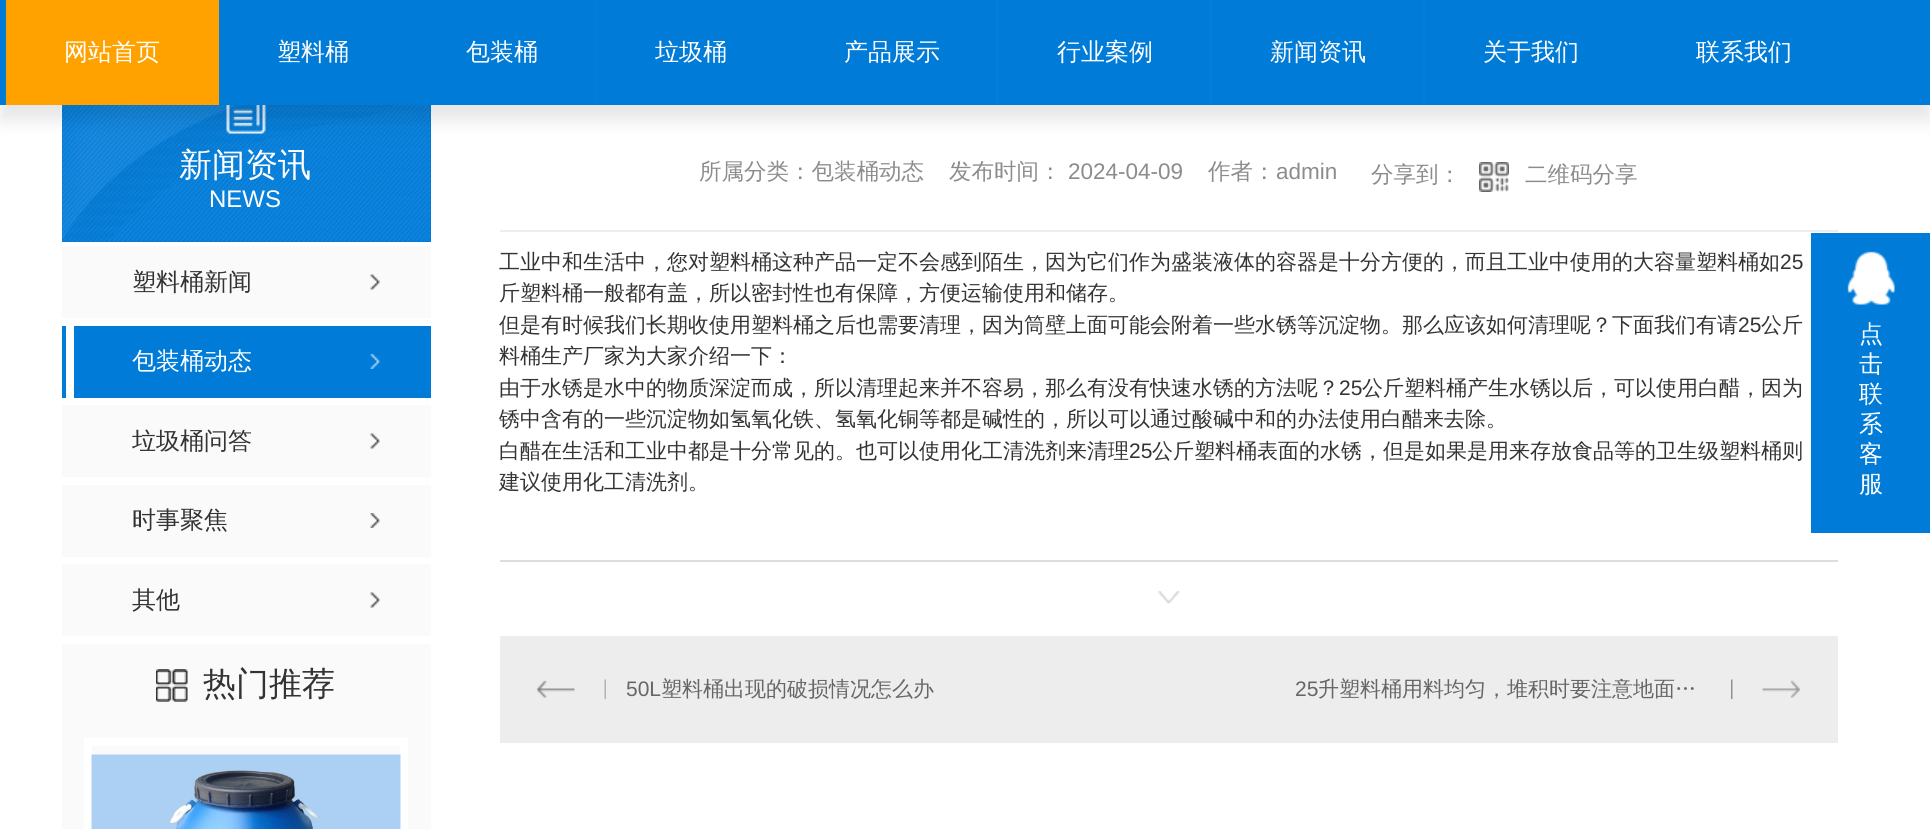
import math
import cairo


def round_path(ctx, x, y, w, h, r):
	ctx.new_sub_path()
	for i, (u, v) in enumerate([(x + w - r, y + h - r), (x + r, y + h - r), (x + r, y + r), (x + w - r, y + r)]):
		ctx.arc(u, v, r, i * math.pi / 2, (i + 1) * math.pi / 2)
	ctx.close_path()

def blur_box(ctx, x, y, w, h, r, blur, alpha):
	ctx.push_group_with_content(cairo.CONTENT_ALPHA)
	ctx.set_operator(cairo.OPERATOR_SOURCE)
	for i in range(15, -16, -2):
		e = blur * i / 6
		if min(w, h) + 2 * e > 0:
			ctx.set_source_rgba(0, 0, 0, alpha * math.erfc((i - 1) / 8.5) / 2)
			round_path(ctx, x - e, y - e, w + 2 * e, h + 2 * e, max(0, min(r + e + blur * .6, min(w, h) / 2 + e)))
			ctx.fill()
	ctx.mask(ctx.pop_group())

def paste(ctx, path, x, y, w, h):
	ctx.save()
	ctx.set_source_surface(cairo.ImageSurface.create_from_png(path), x, y)
	ctx.rectangle(x, y, w, h)
	ctx.fill()
	ctx.restore()

def draw(ctx):
	ctx.set_source_rgb(1, 1, 1)
	ctx.paint()
	ctx.set_source_rgb(0, 0.482, 0.847)
	ctx.rectangle(62, 105, 369, 137)
	ctx.fill()
	paste(ctx, 'media/1.png', 62, 105, 368, 137)
	paste(ctx, 'media/2.png', 226, 105, 40, 29)
	ctx.set_source_rgb(0, 0, 0)
	blur_box(ctx, 0, 15, 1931, 105, 0, 9, 0.1)
	ctx.set_source_rgb(0, 0.482, 0.847)
	ctx.rectangle(0, 0, 1930, 105)
	ctx.fill()
	ctx.set_source_rgb(1, 0.635, 0)
	ctx.rectangle(6, 0, 213, 105)
	ctx.fill()
	ctx.select_font_face('WenQuanYi Zen Hei Medium')
	ctx.set_font_size(24)
	ctx.set_source_rgb(1, 1, 1)
	ctx.move_to(64, 60)
	ctx.show_text('网站首页')
	ctx.move_to(277, 60)
	ctx.show_text('塑料桶')
	ctx.set_source_rgb(0, 0.494, 0.867)
	ctx.rectangle(594, 0, 3, 105)
	ctx.fill()
	ctx.set_source_rgb(1, 1, 1)
	ctx.move_to(466, 60)
	ctx.show_text('包装桶')
	ctx.move_to(655, 60)
	ctx.show_text('垃圾桶')
	ctx.set_source_rgb(0, 0.494, 0.867)
	ctx.rectangle(996, 0, 3, 105)
	ctx.fill()
	ctx.set_source_rgb(1, 1, 1)
	ctx.move_to(844, 60)
	ctx.show_text('产品展示')
	ctx.set_source_rgb(0, 0.494, 0.867)
	ctx.rectangle(1209, 0, 3, 105)
	ctx.fill()
	ctx.set_source_rgb(1, 1, 1)
	ctx.move_to(1057, 60)
	ctx.show_text('行业案例')
	ctx.set_source_rgb(0, 0.494, 0.867)
	ctx.rectangle(1422, 0, 3, 105)
	ctx.fill()
	ctx.set_source_rgb(1, 1, 1)
	for x, y, s in [
		(1270, 60, '新闻资讯'),
		(1483, 60, '关于我们'),
		(1696, 60, '联系我们'),
	]:
		ctx.move_to(x, y)
		ctx.show_text(s)
	ctx.set_font_size(33)
	ctx.move_to(179, 176)
	ctx.show_text('新闻资讯')
	ctx.select_font_face('Liberation Sans')
	ctx.set_font_size(24)
	ctx.move_to(209, 207)
	ctx.show_text('NEWS')
	ctx.set_source_rgb(0.98, 0.98, 0.98)
	ctx.rectangle(62, 246, 369, 72)
	ctx.fill()
	paste(ctx, 'media/3.png', 370, 274, 10, 16)
	ctx.select_font_face('WenQuanYi Zen Hei Medium')
	ctx.set_source_rgb(0.2, 0.2, 0.2)
	ctx.move_to(132, 290)
	ctx.show_text('塑料桶新闻')
	ctx.set_source_rgb(0, 0.482, 0.847)
	ctx.rectangle(62, 326, 369, 72)
	ctx.fill()
	ctx.set_source_rgb(1, 1, 1)
	ctx.rectangle(66, 326, 8, 72)
	ctx.fill()
	paste(ctx, 'media/4.png', 370, 354, 10, 15)
	ctx.move_to(132, 369)
	ctx.show_text('包装桶动态')
	ctx.set_source_rgb(0.98, 0.98, 0.98)
	ctx.rectangle(62, 405, 369, 72)
	ctx.fill()
	paste(ctx, 'media/3.png', 370, 433, 10, 16)
	ctx.set_source_rgb(0.2, 0.2, 0.2)
	ctx.move_to(132, 449)
	ctx.show_text('垃圾桶问答')
	ctx.set_source_rgb(0.98, 0.98, 0.98)
	ctx.rectangle(62, 485, 369, 72)
	ctx.fill()
	paste(ctx, 'media/5.png', 370, 513, 10, 15)
	ctx.set_source_rgb(0.2, 0.2, 0.2)
	ctx.move_to(132, 528)
	ctx.show_text('时事聚焦')
	ctx.set_source_rgb(0.98, 0.98, 0.98)
	ctx.rectangle(62, 564, 369, 72)
	ctx.fill()
	paste(ctx, 'media/3.png', 370, 592, 10, 16)
	ctx.set_source_rgb(0.2, 0.2, 0.2)
	ctx.move_to(132, 608)
	ctx.show_text('其他')
	ctx.set_source_rgb(0.98, 0.98, 0.98)
	ctx.rectangle(62, 644, 369, 185)
	ctx.fill()
	paste(ctx, 'media/6.png', 156, 669, 32, 33)
	ctx.set_font_size(33)
	ctx.set_source_rgb(0.2, 0.2, 0.2)
	ctx.move_to(203, 695)
	ctx.show_text('热门推荐')
	ctx.rectangle(88, 742, 316, 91)
	ctx.set_source_rgb(1, 1, 1)
	ctx.set_line_width(8)
	ctx.stroke()
	paste(ctx, 'media/7.png', 91, 754, 310, 75)
	ctx.set_font_size(22.5)
	ctx.set_source_rgb(0.549, 0.549, 0.549)
	ctx.move_to(699, 179)
	ctx.show_text('所属分类：包装桶动态')
	ctx.move_to(949, 179)
	ctx.show_text('发布时间：')
	ctx.select_font_face('Liberation Sans')
	ctx.move_to(1068, 179)
	ctx.show_text('2024-04-09')
	ctx.select_font_face('WenQuanYi Zen Hei Medium')
	ctx.move_to(1208, 179)
	ctx.show_text('作者：')
	ctx.select_font_face('Liberation Sans')
	ctx.move_to(1276, 179)
	ctx.show_text('admin')
	ctx.select_font_face('WenQuanYi Zen Hei Medium')
	ctx.move_to(1371, 182)
	ctx.show_text('分享到：')
	paste(ctx, 'media/8.png', 1479, 162, 30, 30)
	ctx.move_to(1525, 182)
	ctx.show_text('二维码分享')
	ctx.set_source_rgb(0.929, 0.929, 0.929)
	ctx.rectangle(500, 230, 1338, 2)
	ctx.fill()
	ctx.set_source_rgb(0.867, 0.867, 0.867)
	ctx.rectangle(500, 560, 1338, 2)
	ctx.fill()
	ctx.set_font_size(21)
	ctx.set_source_rgb(0.2, 0.2, 0.2)
	ctx.move_to(499, 269)
	ctx.show_text('工业中和生活中，您对塑料桶这种产品一定不会感到陌生，因为它们作为盛装液体的容器是十分方便的，而且工业中使用的大容量塑料桶如')
	ctx.select_font_face('Liberation Sans')
	ctx.move_to(1780, 269)
	ctx.show_text('25')
	ctx.select_font_face('WenQuanYi Zen Hei Medium')
	ctx.move_to(499, 300)
	ctx.show_text('斤塑料桶一般都有盖，所以密封性也有保障，方便运输使用和储存。')
	ctx.move_to(499, 332)
	ctx.show_text('但是有时候我们长期收使用塑料桶之后也需要清理，因为筒壁上面可能会附着一些水锈等沉淀物。那么应该如何清理呢？下面我们有请')
	ctx.select_font_face('Liberation Sans')
	ctx.move_to(1738, 332)
	ctx.show_text('25')
	ctx.select_font_face('WenQuanYi Zen Hei Medium')
	for x, y, s in [
		(1761, 332, '公斤'),
		(499, 363, '料桶生产厂家为大家介绍一下：'),
		(499, 395, '由于水锈是水中的物质深淀而成，所以清理起来并不容易，那么有没有快速水锈的方法呢？'),
	]:
		ctx.move_to(x, y)
		ctx.show_text(s)
	ctx.select_font_face('Liberation Sans')
	ctx.move_to(1339, 395)
	ctx.show_text('25')
	ctx.select_font_face('WenQuanYi Zen Hei Medium')
	for x, y, s in [
		(1362, 395, '公斤塑料桶产生水锈以后，可以使用白醋，因为'),
		(499, 426, '锈中含有的一些沉淀物如氢氧化铁、氢氧化铜等都是碱性的，所以可以通过酸碱中和的办法使用白醋来去除。'),
		(499, 458, '白醋在生活和工业中都是十分常见的。也可以使用化工清洗剂来清理'),
	]:
		ctx.move_to(x, y)
		ctx.show_text(s)
	ctx.select_font_face('Liberation Sans')
	ctx.move_to(1129, 458)
	ctx.show_text('25')
	ctx.select_font_face('WenQuanYi Zen Hei Medium')
	ctx.move_to(1152, 458)
	ctx.show_text('公斤塑料桶表面的水锈，但是如果是用来存放食品等的卫生级塑料桶则')
	ctx.move_to(499, 489)
	ctx.show_text('建议使用化工清洗剂。')
	paste(ctx, 'media/9.png', 1158, 591, 22, 13)
	ctx.set_source_rgb(0.929, 0.929, 0.929)
	ctx.rectangle(500, 636, 1338, 107)
	ctx.fill()
	paste(ctx, 'media/10.png', 537, 679, 69, 20)
	ctx.select_font_face('Liberation Sans')
	ctx.set_source_rgb(0.4, 0.4, 0.4)
	ctx.move_to(626, 696)
	ctx.show_text('50L')
	ctx.select_font_face('WenQuanYi Zen Hei Medium')
	ctx.move_to(661, 696)
	ctx.show_text('塑料桶出现的破损情况怎么办')
	paste(ctx, 'media/11.png', 1731, 679, 69, 20)
	ctx.select_font_face('Liberation Sans')
	ctx.move_to(1295, 696)
	ctx.show_text('25')
	ctx.select_font_face('WenQuanYi Zen Hei Medium')
	ctx.move_to(1318, 696)
	ctx.show_text('升塑料桶用料均匀，堆积时要注意地面…')
	ctx.set_source_rgb(0, 0.482, 0.847)
	ctx.rectangle(1811, 233, 119, 300)
	ctx.fill()
	paste(ctx, 'media/12.png', 1847, 251, 48, 54)
	ctx.set_font_size(24)
	ctx.set_source_rgb(1, 1, 1)
	for x, y, s in [
		(1859, 342, '点'),
		(1859, 372, '击'),
		(1859, 402, '联'),
		(1859, 432, '系'),
		(1859, 462, '客'),
		(1859, 492, '服'),
	]:
		ctx.move_to(x, y)
		ctx.show_text(s)


surface = cairo.ImageSurface(cairo.FORMAT_RGB24, 1930, 829)
ctx = cairo.Context(surface)
options = cairo.FontOptions()
options.set_hint_metrics(cairo.HINT_METRICS_OFF)
options.set_hint_style(cairo.HINT_STYLE_NONE)
ctx.set_font_options(options)
ctx.set_miter_limit(4)
draw(ctx)
surface.write_to_png('image.png')
